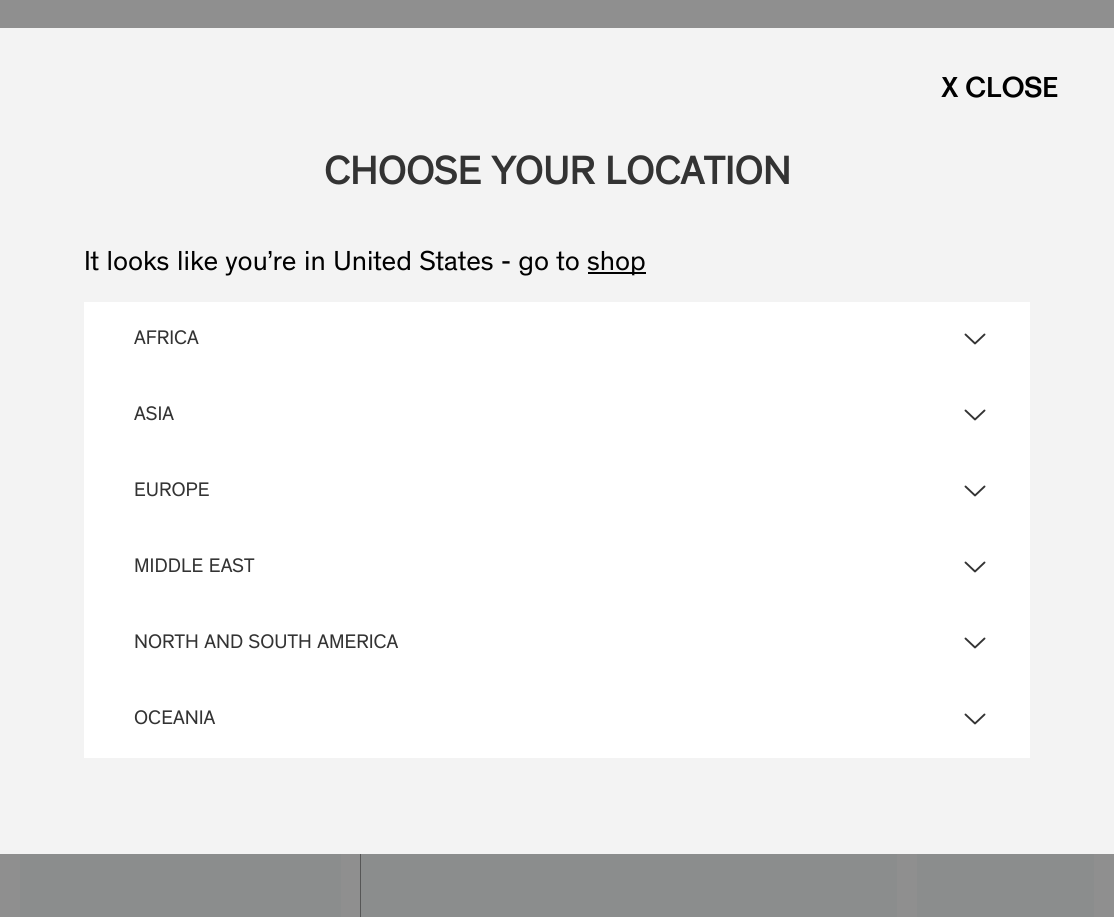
import math
import cairo


def draw(ctx):
	ctx.set_source_rgb(0.561, 0.561, 0.561)
	ctx.paint()
	ctx.set_source_rgb(0.953, 0.953, 0.953)
	ctx.rectangle(0, 28, 1114, 826)
	ctx.fill()
	ctx.select_font_face('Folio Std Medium')
	ctx.set_font_size(28)
	ctx.set_source_rgb(0, 0, 0)
	ctx.move_to(942, 97)
	ctx.show_text('X CLOSE')
	ctx.select_font_face('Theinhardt', cairo.FONT_SLANT_NORMAL, cairo.FONT_WEIGHT_BOLD)
	ctx.set_font_size(40)
	ctx.set_source_rgb(0.2, 0.2, 0.2)
	ctx.move_to(324, 184)
	ctx.show_text('CHOOSE YOUR LOCATION')
	ctx.select_font_face('Theinhardt')
	ctx.set_font_size(28)
	ctx.set_source_rgb(0, 0, 0)
	ctx.move_to(84, 270)
	ctx.show_text('It looks like you’re in United States - go to')
	ctx.rectangle(588, 272, 58, 2)
	ctx.fill()
	ctx.move_to(587, 270)
	ctx.show_text('shop')
	ctx.set_source_rgb(1, 1, 1)
	ctx.rectangle(84, 302, 946, 456)
	ctx.fill()
	ctx.set_font_size(20)
	ctx.set_source_rgb(0.2, 0.2, 0.2)
	ctx.move_to(134, 344)
	ctx.show_text('AFRICA')
	ctx.new_path()
	ctx.move_to(984.5, 334.5)
	ctx.line_to(975, 343.5)
	ctx.line_to(965.5, 334.5)
	ctx.set_line_width(1.9)
	ctx.set_line_cap(cairo.LINE_CAP_ROUND)
	ctx.set_line_join(cairo.LINE_JOIN_ROUND)
	ctx.stroke()
	ctx.move_to(134, 420)
	ctx.show_text('ASIA')
	ctx.new_path()
	ctx.move_to(984.5, 410.5)
	ctx.line_to(975, 419.5)
	ctx.line_to(965.5, 410.5)
	ctx.stroke()
	ctx.move_to(134, 496)
	ctx.show_text('EUROPE')
	ctx.new_path()
	ctx.move_to(984.5, 486.5)
	ctx.line_to(975, 495.5)
	ctx.line_to(965.5, 486.5)
	ctx.stroke()
	ctx.move_to(134, 572)
	ctx.show_text('MIDDLE EAST')
	ctx.new_path()
	ctx.move_to(984.5, 562.5)
	ctx.line_to(975, 571.5)
	ctx.line_to(965.5, 562.5)
	ctx.stroke()
	ctx.move_to(134, 648)
	ctx.show_text('NORTH AND SOUTH AMERICA')
	ctx.new_path()
	ctx.move_to(984.5, 638.5)
	ctx.line_to(975, 647.5)
	ctx.line_to(965.5, 638.5)
	ctx.stroke()
	ctx.move_to(134, 724)
	ctx.show_text('OCEANIA')
	ctx.new_path()
	ctx.move_to(984.5, 714.5)
	ctx.line_to(975, 723.5)
	ctx.line_to(965.5, 714.5)
	ctx.stroke()
	ctx.set_source_rgb(0.545, 0.553, 0.553)
	ctx.rectangle(20, 854, 321, 63)
	ctx.fill()
	ctx.set_source_rgb(0.337, 0.337, 0.337)
	ctx.rectangle(360, 854, 1, 63)
	ctx.fill()
	ctx.set_source_rgb(0.545, 0.553, 0.553)
	ctx.rectangle(361, 854, 536, 63)
	ctx.rectangle(917, 854, 177, 63)
	ctx.fill()


surface = cairo.ImageSurface(cairo.FORMAT_RGB24, 1114, 917)
ctx = cairo.Context(surface)
options = cairo.FontOptions()
options.set_hint_metrics(cairo.HINT_METRICS_OFF)
options.set_hint_style(cairo.HINT_STYLE_NONE)
ctx.set_font_options(options)
ctx.set_miter_limit(4)
draw(ctx)
surface.write_to_png('image.png')
